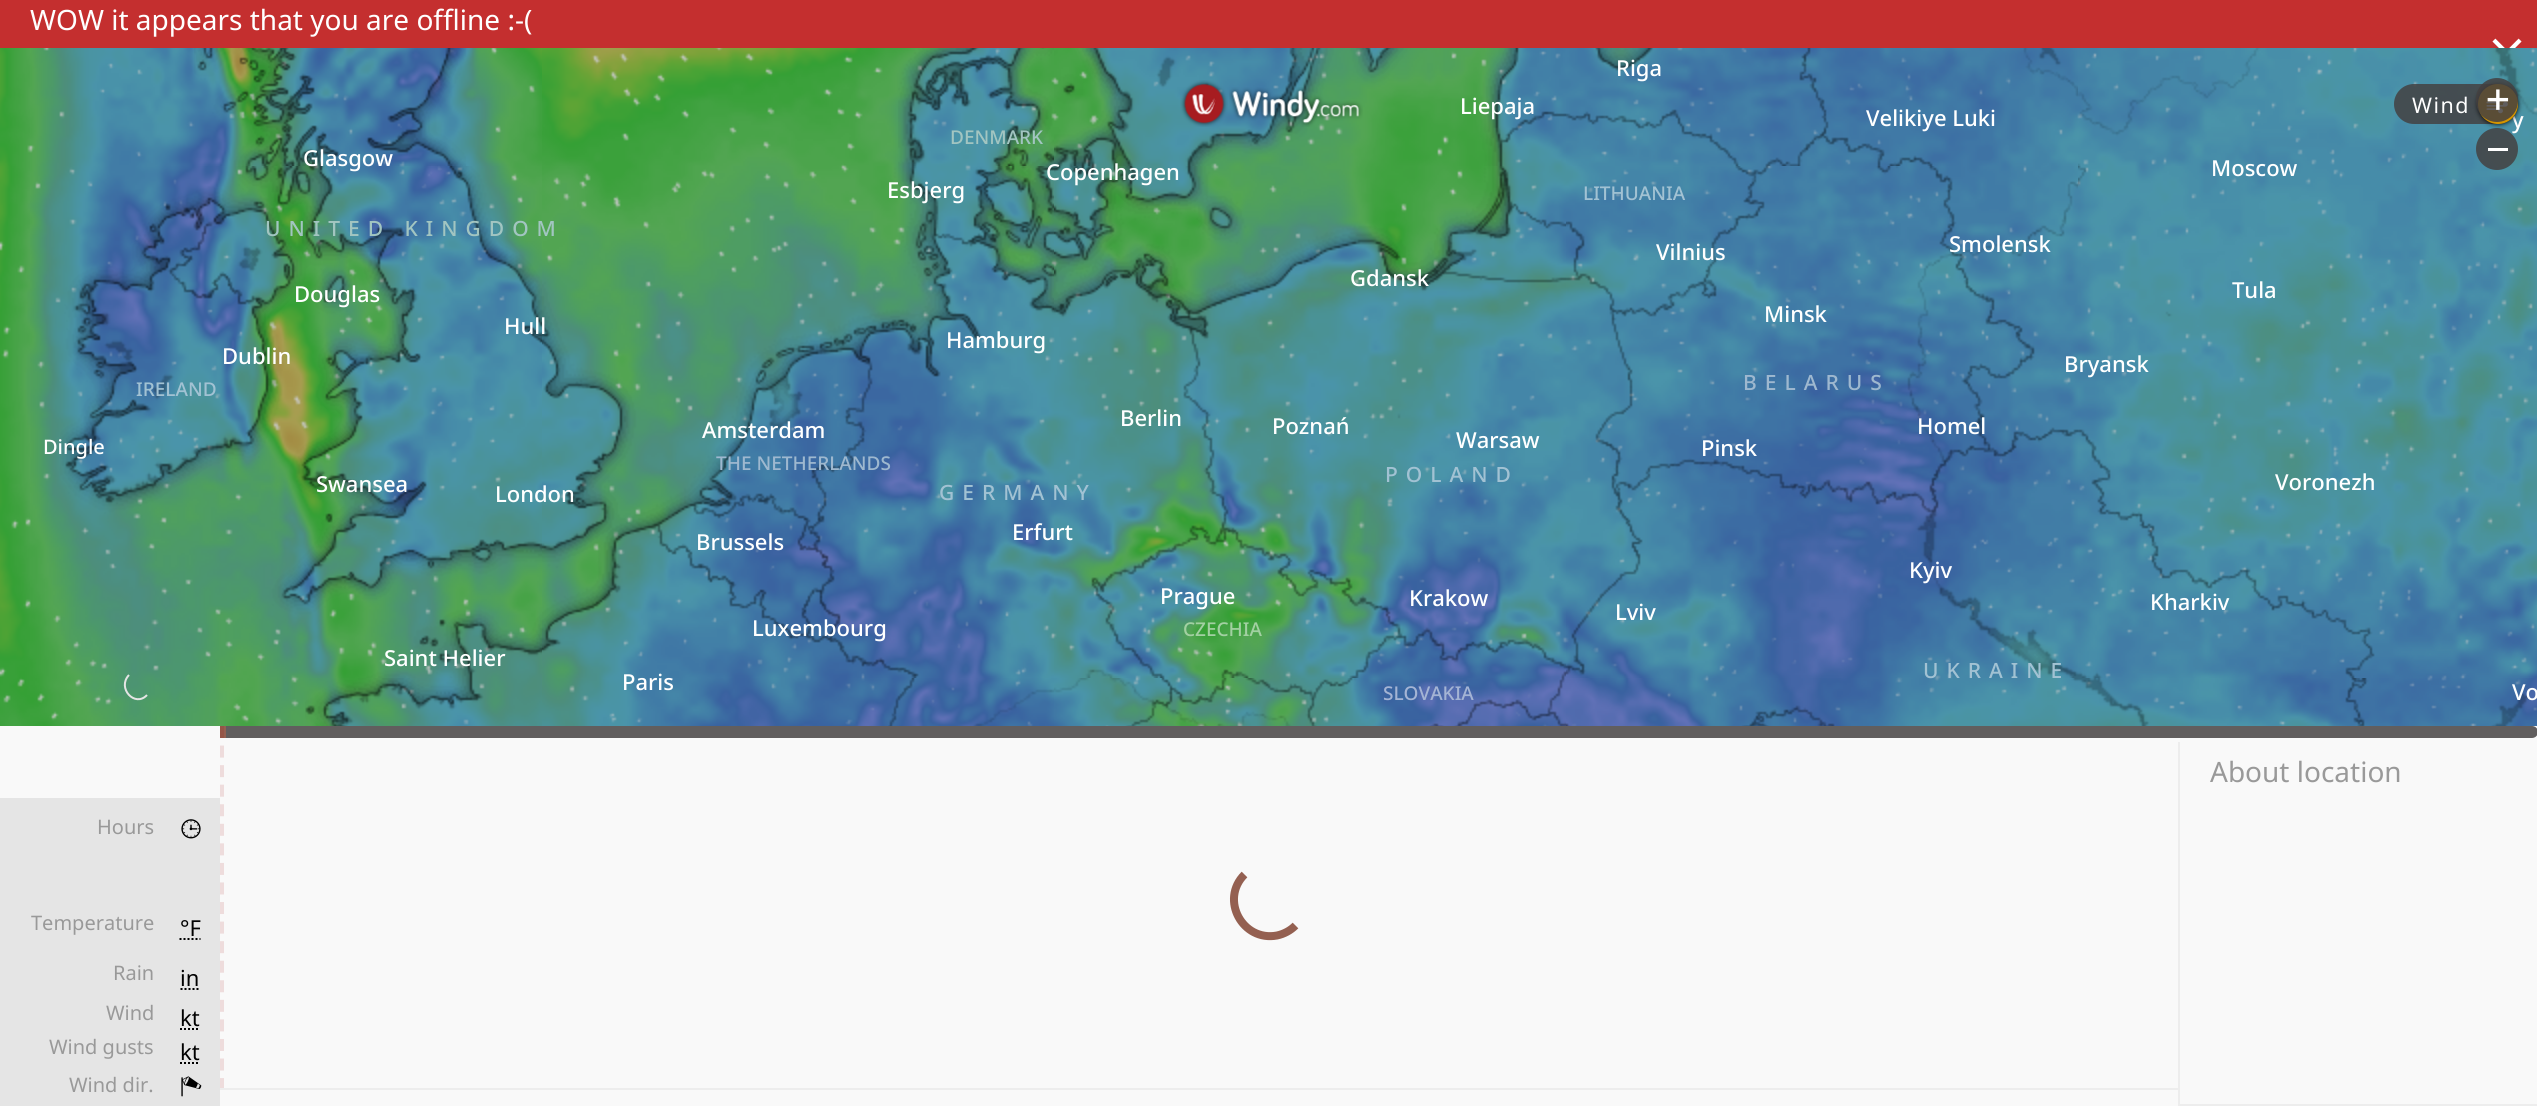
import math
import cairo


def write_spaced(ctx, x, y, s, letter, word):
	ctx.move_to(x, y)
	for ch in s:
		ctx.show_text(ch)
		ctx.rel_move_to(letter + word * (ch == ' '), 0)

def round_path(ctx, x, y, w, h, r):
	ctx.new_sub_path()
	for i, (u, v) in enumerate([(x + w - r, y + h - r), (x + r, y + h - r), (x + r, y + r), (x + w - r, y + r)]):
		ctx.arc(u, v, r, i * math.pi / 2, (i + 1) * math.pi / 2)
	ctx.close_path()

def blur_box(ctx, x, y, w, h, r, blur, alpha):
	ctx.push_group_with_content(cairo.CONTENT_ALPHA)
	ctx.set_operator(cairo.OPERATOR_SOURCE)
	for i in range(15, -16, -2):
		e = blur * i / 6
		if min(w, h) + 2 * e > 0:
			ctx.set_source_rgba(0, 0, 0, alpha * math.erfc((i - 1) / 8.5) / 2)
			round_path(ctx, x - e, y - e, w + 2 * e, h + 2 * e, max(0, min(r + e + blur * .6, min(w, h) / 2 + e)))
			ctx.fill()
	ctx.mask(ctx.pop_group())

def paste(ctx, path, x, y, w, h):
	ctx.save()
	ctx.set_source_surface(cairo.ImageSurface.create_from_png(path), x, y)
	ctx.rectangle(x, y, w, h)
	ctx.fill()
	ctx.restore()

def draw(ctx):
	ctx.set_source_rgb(1, 1, 1)
	ctx.paint()
	ctx.set_source_rgb(0.769, 0.184, 0.184)
	ctx.rectangle(0, 0, 2537, 48)
	ctx.fill()
	ctx.select_font_face('Noto Sans')
	ctx.set_font_size(28)
	ctx.set_source_rgb(1, 1, 1)
	ctx.move_to(30, 30)
	ctx.show_text('WOW it appears that you are offline :-(')
	paste(ctx, 'media/1.png', 2492, 38, 30, 10)
	paste(ctx, 'media/2.png', 0, 48, 30, 118)
	paste(ctx, 'media/3.png', 30, 48, 512, 118)
	paste(ctx, 'media/4.png', 542, 48, 512, 118)
	paste(ctx, 'media/5.png', 1054, 48, 512, 118)
	paste(ctx, 'media/6.png', 1566, 48, 512, 118)
	paste(ctx, 'media/7.png', 2078, 48, 459, 118)
	paste(ctx, 'media/8.png', 0, 166, 30, 512)
	paste(ctx, 'media/9.png', 30, 166, 512, 512)
	paste(ctx, 'media/10.png', 542, 166, 512, 512)
	paste(ctx, 'media/11.png', 1054, 166, 512, 512)
	paste(ctx, 'media/12.png', 1566, 166, 512, 512)
	paste(ctx, 'media/13.png', 2078, 166, 459, 512)
	paste(ctx, 'media/14.png', 0, 678, 30, 48)
	paste(ctx, 'media/15.png', 30, 678, 512, 48)
	paste(ctx, 'media/16.png', 542, 678, 512, 48)
	paste(ctx, 'media/17.png', 1054, 678, 512, 48)
	paste(ctx, 'media/18.png', 1566, 678, 512, 48)
	paste(ctx, 'media/19.png', 2078, 678, 459, 48)
	paste(ctx, 'media/20.png', 0, 48, 2537, 678)
	paste(ctx, 'media/21.png', 194, 48, 272, 118)
	paste(ctx, 'media/22.png', 898, 48, 156, 118)
	paste(ctx, 'media/23.png', 1054, 48, 512, 118)
	paste(ctx, 'media/24.png', 1566, 48, 512, 118)
	paste(ctx, 'media/25.png', 2078, 48, 459, 118)
	paste(ctx, 'media/26.png', 60, 166, 482, 512)
	paste(ctx, 'media/27.png', 542, 166, 512, 512)
	paste(ctx, 'media/28.png', 1054, 166, 512, 512)
	paste(ctx, 'media/29.png', 1566, 166, 512, 512)
	paste(ctx, 'media/30.png', 2078, 166, 297, 512)
	paste(ctx, 'media/31.png', 305, 678, 179, 48)
	paste(ctx, 'media/32.png', 888, 678, 166, 48)
	paste(ctx, 'media/33.png', 1054, 678, 512, 48)
	paste(ctx, 'media/34.png', 1566, 678, 512, 48)
	paste(ctx, 'media/35.png', 2078, 678, 451, 48)
	ctx.select_font_face('Noto Sans Medium')
	ctx.set_font_size(22)
	for x, y, s in [
		(1460, 114, 'Liepaja'),
		(1616, 76, 'Riga'),
		(1866, 126, 'Velikiye Luki'),
		(2512, 128, 'y'),
	]:
		ctx.move_to(x, y)
		ctx.show_text(s)
	ctx.set_font_size(19)
	ctx.set_source_rgb(0.635, 0.773, 0.757)
	ctx.move_to(950, 144)
	ctx.show_text('DENMARK')
	ctx.set_font_size(22)
	ctx.set_source_rgb(1, 1, 1)
	for x, y, s in [
		(303, 166, 'Glasgow'),
		(887, 198, 'Esbjerg'),
		(946, 348, 'Hamburg'),
		(702, 438, 'Amsterdam'),
	]:
		ctx.move_to(x, y)
		ctx.show_text(s)
	ctx.set_font_size(19)
	ctx.set_source_rgb(0.62, 0.722, 0.812)
	ctx.move_to(716, 470)
	ctx.show_text('THE NETHERLANDS')
	ctx.set_font_size(21)
	ctx.set_source_rgb(0.635, 0.761, 0.827)
	write_spaced(ctx, 939, 500, 'GERMANY', 8, 0)
	ctx.set_font_size(22)
	ctx.set_source_rgb(1, 1, 1)
	for x, y, s in [
		(696, 550, 'Brussels'),
		(1012, 540, 'Erfurt'),
		(752, 636, 'Luxembourg'),
		(1046, 180, 'Copenhagen'),
		(1350, 286, 'Gdansk'),
		(1120, 426, 'Berlin'),
		(1272, 434, 'Poznań'),
		(1456, 448, 'Warsaw'),
	]:
		ctx.move_to(x, y)
		ctx.show_text(s)
	ctx.set_font_size(21)
	ctx.set_source_rgb(0.635, 0.761, 0.827)
	write_spaced(ctx, 1385, 482, 'POLAND', 8, 0)
	ctx.set_font_size(22)
	ctx.set_source_rgb(1, 1, 1)
	ctx.move_to(1160, 604)
	ctx.show_text('Prague')
	ctx.move_to(1409, 606)
	ctx.show_text('Krakow')
	ctx.set_font_size(19)
	ctx.set_source_rgb(0.635, 0.816, 0.635)
	ctx.move_to(1183, 636)
	ctx.show_text('CZECHIA')
	ctx.set_source_rgb(0.635, 0.761, 0.827)
	ctx.move_to(1583, 200)
	ctx.show_text('LITHUANIA')
	ctx.set_font_size(22)
	ctx.set_source_rgb(1, 1, 1)
	for x, y, s in [
		(1656, 260, 'Vilnius'),
		(1949, 252, 'Smolensk'),
		(1764, 322, 'Minsk'),
	]:
		ctx.move_to(x, y)
		ctx.show_text(s)
	ctx.set_font_size(21)
	ctx.set_source_rgb(0.62, 0.722, 0.812)
	write_spaced(ctx, 1743, 390, 'BELARUS', 8, 0)
	ctx.set_font_size(22)
	ctx.set_source_rgb(1, 1, 1)
	for x, y, s in [
		(1917, 434, 'Homel'),
		(1701, 456, 'Pinsk'),
		(1909, 578, 'Kyiv'),
		(1615, 620, 'Lviv'),
	]:
		ctx.move_to(x, y)
		ctx.show_text(s)
	ctx.set_font_size(21)
	ctx.set_source_rgb(0.635, 0.761, 0.827)
	write_spaced(ctx, 1923, 678, 'UKRAINE', 8, 0)
	ctx.set_font_size(22)
	ctx.set_source_rgb(1, 1, 1)
	for x, y, s in [
		(2211, 176, 'Moscow'),
		(2232, 298, 'Tula'),
		(2064, 372, 'Bryansk'),
		(2275, 490, 'Voronezh'),
		(2150, 610, 'Kharkiv'),
	]:
		ctx.move_to(x, y)
		ctx.show_text(s)
	ctx.set_font_size(21)
	ctx.set_source_rgb(0.635, 0.773, 0.757)
	write_spaced(ctx, 265, 236, 'UNITED KINGDOM', 8, 0)
	ctx.set_font_size(22)
	ctx.set_source_rgb(1, 1, 1)
	for x, y, s in [
		(294, 302, 'Douglas'),
		(504, 334, 'Hull'),
		(222, 364, 'Dublin'),
	]:
		ctx.move_to(x, y)
		ctx.show_text(s)
	ctx.set_font_size(19)
	ctx.set_source_rgb(0.635, 0.761, 0.827)
	ctx.move_to(136, 396)
	ctx.show_text('IRELAND')
	ctx.set_font_size(20)
	ctx.set_source_rgb(1, 1, 1)
	ctx.move_to(43, 454)
	ctx.show_text('Dingle')
	ctx.set_font_size(22)
	for x, y, s in [
		(316, 492, 'Swansea'),
		(495, 502, 'London'),
		(384, 666, 'Saint Helier'),
		(622, 690, 'Paris'),
	]:
		ctx.move_to(x, y)
		ctx.show_text(s)
	ctx.set_font_size(19)
	ctx.set_source_rgb(0.643, 0.706, 0.831)
	ctx.move_to(1383, 700)
	ctx.show_text('SLOVAKIA')
	ctx.set_font_size(22)
	ctx.set_source_rgb(1, 1, 1)
	ctx.move_to(2512, 700)
	ctx.show_text('Vo')
	paste(ctx, 'media/36.png', 1180, 80, 48, 47)
	paste(ctx, 'media/37.png', 1229, 87, 134, 40)
	ctx.set_source_rgba(0.267, 0.255, 0.255, 0.84)
	round_path(ctx, 2394, 84, 124, 40, 20)
	ctx.fill()
	ctx.select_font_face('Noto Sans')
	ctx.set_font_size(21.5)
	ctx.set_source_rgb(1, 1, 1)
	write_spaced(ctx, 2412, 113, 'Wind', 1.5, 0)
	ctx.set_source_rgb(0, 0, 0)
	blur_box(ctx, 2478, 84, 40, 40, 20, 2.5, 1)
	ctx.set_source_rgb(0.831, 0.584, 0)
	ctx.arc(2498, 104, 20, 0, 2 * math.pi)
	ctx.fill()
	paste(ctx, 'media/38.png', 2486, 101, 22, 13)
	ctx.set_source_rgba(0.267, 0.255, 0.255, 0.84)
	round_path(ctx, 2476, 78, 42, 44, 21)
	ctx.fill()
	paste(ctx, 'media/39.png', 2487, 89, 22, 21)
	ctx.arc(2497, 149, 21, 0, 2 * math.pi)
	ctx.fill()
	ctx.set_source_rgb(1, 1, 1)
	ctx.rectangle(2488, 148, 20, 3)
	ctx.fill()
	ctx.new_path()
	ctx.move_to(147, 695)
	ctx.curve_to(135, 708, 116.5, 688, 129, 675)
	ctx.set_source_rgb(0.898, 0.898, 0.898)
	ctx.stroke()
	ctx.set_source_rgb(0.973, 0.973, 0.973)
	ctx.rectangle(0, 726, 2537, 380)
	ctx.fill()
	ctx.set_source_rgb(0.38, 0.369, 0.369)
	round_path(ctx, 220, 726, 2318, 12, 6)
	ctx.fill()
	ctx.set_source_rgb(0.58, 0.376, 0.318)
	ctx.rectangle(220, 726, 6, 12)
	ctx.fill()
	ctx.new_path()
	ctx.move_to(222, 726)
	ctx.line_to(222, 1090)
	ctx.set_source_rgba(0.616, 0.012, 0, 0.12)
	ctx.set_line_width(4)
	ctx.set_dash([12, 7.56])
	ctx.stroke()
	ctx.set_source_rgb(0.929, 0.929, 0.929)
	ctx.rectangle(2178, 1104, 359, 2)
	ctx.rectangle(2178, 742, 2, 364)
	ctx.rectangle(220, 1088, 1960, 2)
	ctx.fill()
	ctx.set_font_size(28)
	ctx.set_source_rgb(0.6, 0.6, 0.6)
	ctx.move_to(2210, 782)
	ctx.show_text('About location')
	ctx.set_source_rgb(0.898, 0.898, 0.898)
	ctx.rectangle(0, 798, 220, 308)
	ctx.fill()
	ctx.set_font_size(20)
	ctx.set_source_rgb(0.6, 0.6, 0.6)
	ctx.move_to(97, 834)
	ctx.show_text('Hours')
	paste(ctx, 'media/40.png', 181, 819, 20, 20)
	ctx.move_to(31, 930)
	ctx.show_text('Temperature')
	ctx.set_font_size(22)
	ctx.set_source_rgb(0, 0, 0)
	ctx.move_to(180, 936)
	ctx.show_text('°F')
	ctx.new_path()
	ctx.move_to(179.5, 939)
	ctx.line_to(200.5, 939)
	ctx.set_line_width(2)
	ctx.set_dash([2, 2])
	ctx.stroke()
	ctx.set_font_size(20)
	ctx.set_source_rgb(0.6, 0.6, 0.6)
	ctx.move_to(113, 980)
	ctx.show_text('Rain')
	ctx.set_font_size(22)
	ctx.set_source_rgb(0, 0, 0)
	ctx.move_to(180, 986)
	ctx.show_text('in')
	ctx.new_path()
	ctx.move_to(180.5, 989)
	ctx.line_to(199.5, 989)
	ctx.stroke()
	ctx.set_font_size(20)
	ctx.set_source_rgb(0.6, 0.6, 0.6)
	ctx.move_to(106, 1020)
	ctx.show_text('Wind')
	ctx.set_font_size(22)
	ctx.set_source_rgb(0, 0, 0)
	ctx.move_to(180, 1026)
	ctx.show_text('kt')
	ctx.new_path()
	ctx.move_to(180, 1029)
	ctx.line_to(200, 1029)
	ctx.stroke()
	ctx.set_font_size(20)
	ctx.set_source_rgb(0.6, 0.6, 0.6)
	ctx.move_to(49, 1054)
	ctx.show_text('Wind gusts')
	ctx.set_font_size(22)
	ctx.set_source_rgb(0, 0, 0)
	ctx.move_to(180, 1060)
	ctx.show_text('kt')
	ctx.new_path()
	ctx.move_to(180, 1063)
	ctx.line_to(200, 1063)
	ctx.stroke()
	ctx.set_font_size(20)
	ctx.set_source_rgb(0.6, 0.6, 0.6)
	ctx.move_to(69, 1092)
	ctx.show_text('Wind dir.')
	paste(ctx, 'media/41.png', 181, 1076, 21, 21)
	ctx.new_path()
	ctx.move_to(1295.5, 925.5)
	ctx.curve_to(1290.5, 930.5, 1284, 934, 1277, 935.5)
	ctx.curve_to(1242.5, 942, 1219.5, 899.5, 1244.5, 874.5)
	ctx.set_source_rgb(0.58, 0.376, 0.318)
	ctx.set_line_width(8)
	ctx.set_dash([])
	ctx.stroke()


surface = cairo.ImageSurface(cairo.FORMAT_RGB24, 2537, 1106)
ctx = cairo.Context(surface)
options = cairo.FontOptions()
options.set_hint_metrics(cairo.HINT_METRICS_OFF)
options.set_hint_style(cairo.HINT_STYLE_NONE)
ctx.set_font_options(options)
ctx.set_miter_limit(4)
draw(ctx)
surface.write_to_png('image.png')
